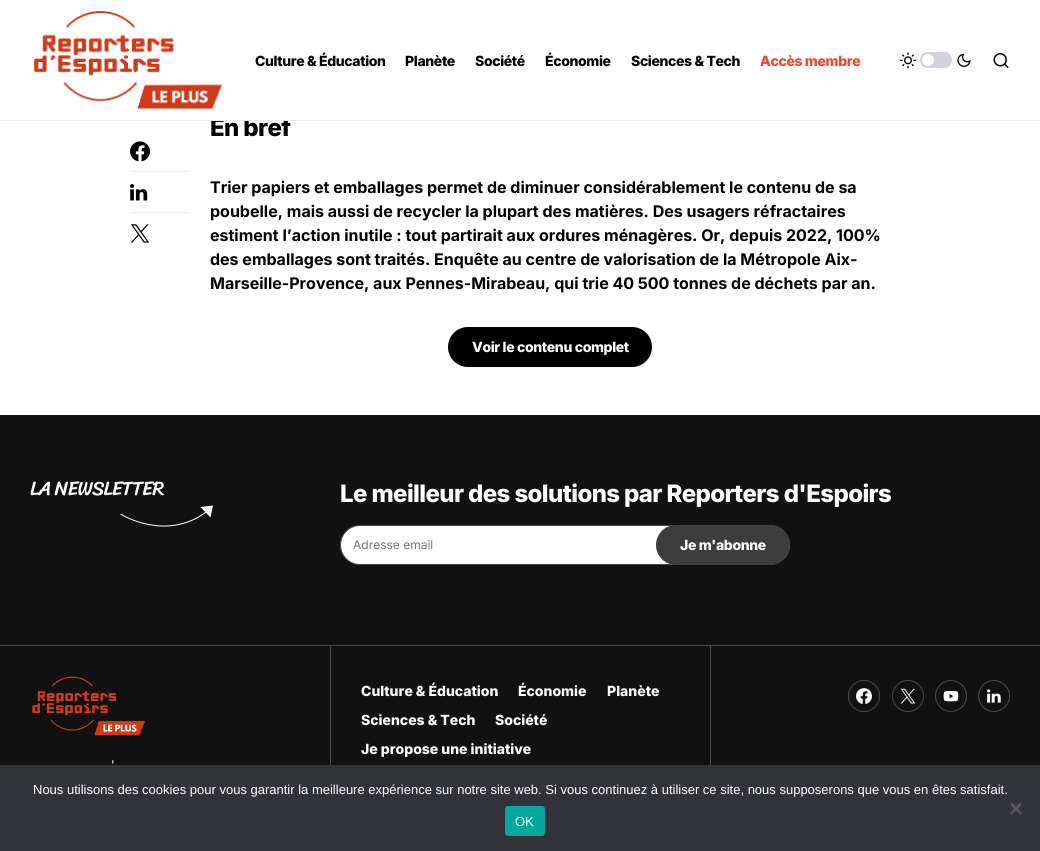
import math
import cairo


def write_spaced(ctx, x, y, s, letter, word):
	ctx.move_to(x, y)
	for ch in s:
		ctx.show_text(ch)
		ctx.rel_move_to(letter + word * (ch == ' '), 0)

def round_path(ctx, x, y, w, h, r):
	ctx.new_sub_path()
	for i, (u, v) in enumerate([(x + w - r, y + h - r), (x + r, y + h - r), (x + r, y + r), (x + w - r, y + r)]):
		ctx.arc(u, v, r, i * math.pi / 2, (i + 1) * math.pi / 2)
	ctx.close_path()

def paste(ctx, path, x, y, w, h):
	ctx.save()
	ctx.set_source_surface(cairo.ImageSurface.create_from_png(path), x, y)
	ctx.rectangle(x, y, w, h)
	ctx.fill()
	ctx.restore()

def draw(ctx):
	ctx.set_source_rgb(1, 1, 1)
	ctx.paint()
	ctx.select_font_face('Inter ExtraBold')
	ctx.set_font_size(24)
	ctx.set_source_rgb(0, 0, 0)
	write_spaced(ctx, 210, 136, 'En bref', -0.6, 0)
	ctx.set_source_rgb(1, 1, 1)
	ctx.rectangle(211, 117, 80, 3)
	ctx.fill()
	ctx.set_source_rgb(0.914, 0.925, 0.937)
	ctx.rectangle(0, 120, 1040, 1)
	ctx.fill()
	paste(ctx, 'media/1.png', 33, 11, 190, 99)
	ctx.set_font_size(14)
	ctx.set_source_rgb(0, 0, 0)
	for x, y, s in [
		(255, 66, 'Culture & Éducation'),
		(405, 66, 'Planète'),
		(475, 66, 'Société'),
		(545, 66, 'Économie'),
		(631, 66, 'Sciences & Tech'),
	]:
		write_spaced(ctx, x, y, s, -0.35, 0)
	ctx.set_source_rgb(0.914, 0.286, 0.18)
	write_spaced(ctx, 760, 66, 'Accès membre', -0.35, 0)
	paste(ctx, 'media/2.png', 900, 52, 16, 17)
	ctx.set_source_rgb(0.808, 0.831, 0.855)
	round_path(ctx, 920, 52, 32, 16, 8)
	ctx.fill()
	ctx.set_source_rgb(1, 1, 1)
	ctx.arc(928, 60, 6, 0, 2 * math.pi)
	ctx.fill()
	paste(ctx, 'media/3.png', 957, 53, 14, 14)
	paste(ctx, 'media/4.png', 993, 53, 16, 15)
	paste(ctx, 'media/5.png', 130, 141, 20, 21)
	ctx.set_source_rgb(0.914, 0.925, 0.937)
	ctx.rectangle(130, 171, 60, 1)
	ctx.fill()
	paste(ctx, 'media/6.png', 130, 184, 18, 17)
	ctx.rectangle(130, 212, 60, 1)
	ctx.fill()
	paste(ctx, 'media/7.png', 131, 224, 18, 19)
	ctx.select_font_face('Inter', cairo.FONT_SLANT_NORMAL, cairo.FONT_WEIGHT_BOLD)
	ctx.set_font_size(16)
	ctx.set_source_rgb(0, 0, 0)
	for x, y, s in [
		(210, 193, 'Trier papiers et emballages permet de diminuer considérablement le contenu de sa'),
		(210, 217, 'poubelle, mais aussi de recycler la plupart des matières. Des usagers réfractaires'),
		(210, 241, 'estiment l’action inutile : tout partirait aux ordures ménagères. Or, depuis 2022, 100%'),
		(210, 265, 'des emballages sont traités. Enquête au centre de valorisation de la Métropole Aix-'),
		(210, 289, 'Marseille-Provence, aux Pennes-Mirabeau, qui trie 40 500 tonnes de déchets par an.'),
	]:
		ctx.move_to(x, y)
		ctx.show_text(s)
	round_path(ctx, 448, 327, 204, 40, 20)
	ctx.fill()
	ctx.select_font_face('Inter ExtraBold')
	ctx.set_font_size(14)
	ctx.set_source_rgb(1, 1, 1)
	write_spaced(ctx, 472, 352, 'Voir le contenu complet', -0.35, 0)
	ctx.set_source_rgb(0.067, 0.067, 0.067)
	ctx.rectangle(0, 415, 1040, 350)
	ctx.fill()
	ctx.set_source_rgb(0.286, 0.286, 0.286)
	ctx.rectangle(0, 645, 1040, 1)
	ctx.fill()
	ctx.select_font_face('Sriracha')
	ctx.set_font_size(20)
	ctx.set_source_rgb(1, 1, 1)
	write_spaced(ctx, 30, 495, 'LA NEWSLETTER', -1, 0)
	ctx.new_path()
	ctx.move_to(120.5, 514)
	ctx.curve_to(120.5, 514, 166, 543, 207.5, 511)
	ctx.set_line_width(1)
	ctx.stroke()
	ctx.new_path()
	ctx.move_to(213, 505.5)
	ctx.line_to(210.5, 517.5)
	ctx.line_to(200.5, 507)
	ctx.close_path()
	ctx.fill()
	ctx.select_font_face('Inter ExtraBold')
	ctx.set_font_size(24)
	write_spaced(ctx, 340, 502, 'Le meilleur des solutions par Reporters d\'Espoirs', -0.6, 0)
	round_path(ctx, 340.5, 525.5, 449, 39, 19.5)
	ctx.fill_preserve()
	ctx.set_source_rgb(0.286, 0.286, 0.286)
	ctx.stroke()
	ctx.select_font_face('Inter')
	ctx.set_font_size(12)
	ctx.set_source_rgb(0.459, 0.459, 0.459)
	ctx.move_to(353, 549)
	ctx.show_text('Adresse email')
	ctx.set_source_rgb(0.239, 0.239, 0.239)
	round_path(ctx, 656, 525, 134, 40, 20)
	ctx.fill()
	ctx.select_font_face('Inter ExtraBold')
	ctx.set_font_size(14)
	ctx.set_source_rgb(1, 1, 1)
	write_spaced(ctx, 680, 550, 'Je m\'abonne', -0.35, 0)
	ctx.set_source_rgb(0.286, 0.286, 0.286)
	ctx.rectangle(330, 646, 1, 119)
	ctx.fill()
	ctx.set_source_rgb(1, 1, 1)
	for x, y, s in [
		(361, 696, 'Culture & Éducation'),
		(518, 696, 'Économie'),
		(607, 696, 'Planète'),
		(361, 725, 'Sciences & Tech'),
		(495, 725, 'Société'),
		(361, 754, 'Je propose une initiative'),
	]:
		ctx.move_to(x, y)
		ctx.show_text(s)
	ctx.set_source_rgb(0.286, 0.286, 0.286)
	ctx.rectangle(710, 646, 1, 119)
	ctx.fill()
	ctx.arc(864, 696, 15.5, 0, 2 * math.pi)
	ctx.stroke()
	paste(ctx, 'media/8.png', 856, 688, 16, 16)
	ctx.arc(908, 696, 15.5, 0, 2 * math.pi)
	ctx.stroke()
	paste(ctx, 'media/9.png', 900, 688, 16, 16)
	ctx.arc(951, 696, 15.5, 0, 2 * math.pi)
	ctx.stroke()
	paste(ctx, 'media/10.png', 943, 691, 16, 11)
	ctx.arc(994, 696, 15.5, 0, 2 * math.pi)
	ctx.stroke()
	paste(ctx, 'media/11.png', 987, 689, 14, 14)
	paste(ctx, 'media/12.png', 32, 676, 113, 60)
	ctx.select_font_face('Inter')
	ctx.set_font_size(12)
	ctx.set_source_rgb(1, 1, 1)
	ctx.move_to(111, 769)
	ctx.show_text('\'')
	ctx.set_source_rgb(0.196, 0.196, 0.227)
	ctx.rectangle(0, 765, 1040, 86)
	ctx.fill()
	ctx.select_font_face('Liberation Sans')
	ctx.set_font_size(13)
	ctx.set_source_rgb(1, 1, 1)
	ctx.move_to(33, 794)
	ctx.show_text('Nous utilisons des cookies pour vous garantir la meilleure expérience sur notre site web. Si vous continuez à utiliser ce site, nous supposerons que vous en êtes satisfait.')
	ctx.set_source_rgb(0.349, 0.349, 0.365)
	ctx.new_path()
	ctx.move_to(1020.5, 802.5)
	ctx.line_to(1022, 804)
	ctx.line_to(1011.5, 814.5)
	ctx.line_to(1010, 813)
	ctx.close_path()
	ctx.fill()
	ctx.new_path()
	ctx.move_to(1010, 804)
	ctx.line_to(1011.5, 802.5)
	ctx.line_to(1022, 813)
	ctx.line_to(1020.5, 814.5)
	ctx.close_path()
	ctx.fill()
	ctx.set_source_rgb(0, 0.663, 0.616)
	round_path(ctx, 505, 806, 40, 30, 3)
	ctx.fill()
	ctx.set_source_rgb(1, 1, 1)
	ctx.move_to(515, 826)
	ctx.show_text('OK')


surface = cairo.ImageSurface(cairo.FORMAT_RGB24, 1040, 851)
ctx = cairo.Context(surface)
options = cairo.FontOptions()
options.set_hint_metrics(cairo.HINT_METRICS_OFF)
options.set_hint_style(cairo.HINT_STYLE_NONE)
ctx.set_font_options(options)
ctx.set_miter_limit(4)
draw(ctx)
surface.write_to_png('image.png')
